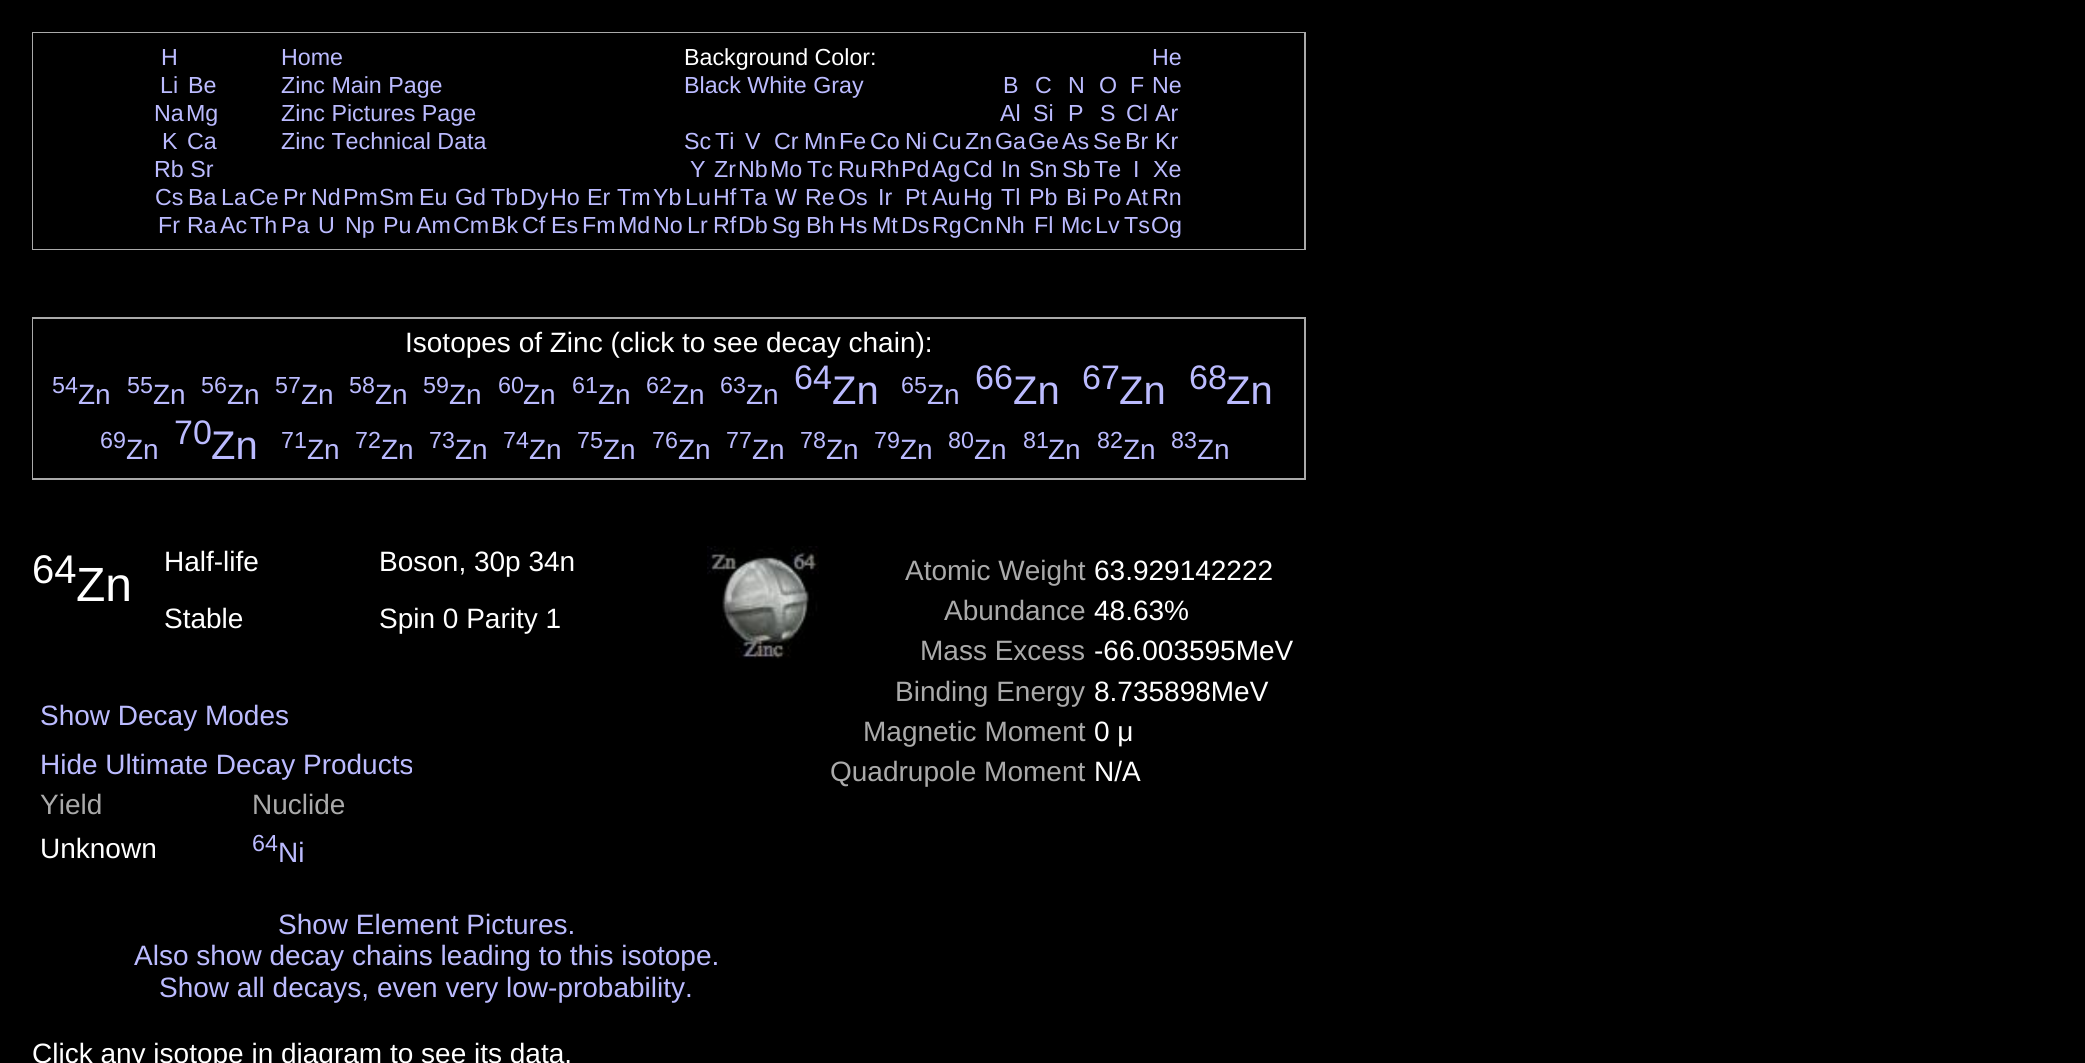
import math
import cairo


def paste(ctx, path, x, y, w, h):
	ctx.save()
	ctx.set_source_surface(cairo.ImageSurface.create_from_png(path), x, y)
	ctx.rectangle(x, y, w, h)
	ctx.fill()
	ctx.restore()

def draw(ctx):
	ctx.set_source_rgb(0, 0, 0)
	ctx.paint()
	ctx.set_source_rgb(0.667, 0.667, 0.667)
	ctx.rectangle(32, 32, 1274, 218)
	ctx.fill()
	ctx.set_source_rgb(0, 0, 0)
	ctx.rectangle(33, 33, 1271, 216)
	ctx.fill()
	ctx.select_font_face('Liberation Sans')
	ctx.set_font_size(23.25)
	ctx.set_source_rgb(0.733, 0.733, 1)
	ctx.move_to(161, 65)
	ctx.show_text('H')
	ctx.move_to(281, 65)
	ctx.show_text('Home')
	ctx.set_source_rgb(1, 1, 1)
	ctx.move_to(684, 65)
	ctx.show_text('Background Color:')
	ctx.set_source_rgb(0.733, 0.733, 1)
	for x, y, s in [
		(1152, 65, 'He'),
		(160, 93, 'Li'),
		(188, 93, 'Be'),
		(281, 93, 'Zinc Main Page'),
		(684, 93, 'Black White Gray'),
		(1003, 93, 'B'),
		(1035, 93, 'C'),
		(1068, 93, 'N'),
		(1099, 93, 'O'),
		(1130, 93, 'F'),
		(1152, 93, 'Ne'),
		(154, 121, 'Na'),
		(186, 121, 'Mg'),
		(281, 121, 'Zinc Pictures Page'),
		(1000, 121, 'Al'),
		(1033, 121, 'Si'),
		(1068, 121, 'P'),
		(1100, 121, 'S'),
		(1126, 121, 'Cl'),
		(1155, 121, 'Ar'),
		(162, 149, 'K'),
		(187, 149, 'Ca'),
		(281, 149, 'Zinc Technical Data'),
		(684, 149, 'Sc'),
		(715, 149, 'Ti'),
		(745, 149, 'V'),
		(774, 149, 'Cr'),
		(804, 149, 'Mn'),
		(839, 149, 'Fe'),
		(870, 149, 'Co'),
		(905, 149, 'Ni'),
		(932, 149, 'Cu'),
		(965, 149, 'Zn'),
		(995, 149, 'Ga'),
		(1028, 149, 'Ge'),
		(1062, 149, 'As'),
		(1093, 149, 'Se'),
		(1125, 149, 'Br'),
		(1155, 149, 'Kr'),
		(154, 177, 'Rb Sr'),
		(690, 177, 'Y'),
		(714, 177, 'Zr'),
		(738, 177, 'Nb'),
		(770, 177, 'Mo'),
		(807, 177, 'Tc'),
		(838, 177, 'Ru'),
		(870, 177, 'Rh'),
		(901, 177, 'Pd'),
		(932, 177, 'Ag'),
		(963, 177, 'Cd'),
		(1001, 177, 'In'),
		(1029, 177, 'Sn'),
		(1062, 177, 'Sb'),
		(1094, 177, 'Te'),
		(1133, 177, 'I'),
		(1153, 177, 'Xe'),
		(155, 205, 'Cs'),
		(188, 205, 'Ba'),
		(221, 205, 'La'),
		(249, 205, 'Ce'),
		(283, 205, 'Pr'),
		(311, 205, 'Nd'),
		(343, 205, 'Pm'),
		(379, 205, 'Sm'),
		(419, 205, 'Eu'),
		(455, 205, 'Gd'),
		(491, 205, 'Tb'),
		(520, 205, 'Dy'),
		(550, 205, 'Ho'),
		(587, 205, 'Er'),
		(617, 205, 'Tm'),
		(653, 205, 'Yb'),
		(685, 205, 'Lu'),
		(713, 205, 'Hf'),
		(740, 205, 'Ta'),
		(775, 205, 'W'),
		(805, 205, 'Re'),
		(838, 205, 'Os'),
		(878, 205, 'Ir'),
		(905, 205, 'Pt'),
		(932, 205, 'Au'),
		(963, 205, 'Hg'),
		(1001, 205, 'Tl'),
		(1029, 205, 'Pb'),
		(1066, 205, 'Bi'),
		(1093, 205, 'Po'),
		(1126, 205, 'At'),
		(1152, 205, 'Rn'),
		(158, 233, 'Fr'),
		(187, 233, 'Ra'),
		(220, 233, 'Ac'),
		(250, 233, 'Th'),
		(281, 233, 'Pa'),
		(318, 233, 'U'),
		(345, 233, 'Np'),
		(383, 233, 'Pu'),
		(416, 233, 'Am'),
		(453, 233, 'Cm'),
		(491, 233, 'Bk'),
		(522, 233, 'Cf'),
		(551, 233, 'Es'),
		(582, 233, 'Fm'),
		(618, 233, 'Md'),
		(653, 233, 'No'),
		(687, 233, 'Lr'),
		(713, 233, 'Rf'),
		(738, 233, 'Db'),
		(772, 233, 'Sg'),
		(806, 233, 'Bh'),
		(839, 233, 'Hs'),
		(872, 233, 'Mt'),
		(901, 233, 'Ds'),
		(932, 233, 'Rg'),
		(963, 233, 'Cn'),
		(995, 233, 'Nh'),
		(1034, 233, 'Fl'),
		(1061, 233, 'Mc'),
		(1095, 233, 'Lv'),
		(1124, 233, 'Ts'),
		(1151, 233, 'Og'),
	]:
		ctx.move_to(x, y)
		ctx.show_text(s)
	ctx.set_source_rgb(0.667, 0.667, 0.667)
	ctx.rectangle(32, 317, 1274, 163)
	ctx.fill()
	ctx.set_source_rgb(0, 0, 0)
	ctx.rectangle(33, 319, 1271, 159)
	ctx.fill()
	ctx.set_font_size(28)
	ctx.set_source_rgb(1, 1, 1)
	ctx.move_to(405, 352)
	ctx.show_text('Isotopes of Zinc (click to see decay chain):')
	ctx.set_font_size(23.25)
	ctx.set_source_rgb(0.733, 0.733, 1)
	ctx.move_to(52, 393)
	ctx.show_text('54')
	ctx.set_font_size(28)
	ctx.move_to(78, 404)
	ctx.show_text('Zn')
	ctx.set_font_size(23.25)
	ctx.move_to(127, 393)
	ctx.show_text('55')
	ctx.set_font_size(28)
	ctx.move_to(153, 404)
	ctx.show_text('Zn')
	ctx.set_font_size(23.25)
	ctx.move_to(201, 393)
	ctx.show_text('56')
	ctx.set_font_size(28)
	ctx.move_to(227, 404)
	ctx.show_text('Zn')
	ctx.set_font_size(23.25)
	ctx.move_to(275, 393)
	ctx.show_text('57')
	ctx.set_font_size(28)
	ctx.move_to(301, 404)
	ctx.show_text('Zn')
	ctx.set_font_size(23.25)
	ctx.move_to(349, 393)
	ctx.show_text('58')
	ctx.set_font_size(28)
	ctx.move_to(375, 404)
	ctx.show_text('Zn')
	ctx.set_font_size(23.25)
	ctx.move_to(423, 393)
	ctx.show_text('59')
	ctx.set_font_size(28)
	ctx.move_to(449, 404)
	ctx.show_text('Zn')
	ctx.set_font_size(23.25)
	ctx.move_to(498, 393)
	ctx.show_text('60')
	ctx.set_font_size(28)
	ctx.move_to(523, 404)
	ctx.show_text('Zn')
	ctx.set_font_size(23.25)
	ctx.move_to(572, 393)
	ctx.show_text('61')
	ctx.set_font_size(28)
	ctx.move_to(598, 404)
	ctx.show_text('Zn')
	ctx.set_font_size(23.25)
	ctx.move_to(646, 393)
	ctx.show_text('62')
	ctx.set_font_size(28)
	ctx.move_to(672, 404)
	ctx.show_text('Zn')
	ctx.set_font_size(23.25)
	ctx.move_to(720, 393)
	ctx.show_text('63')
	ctx.set_font_size(28)
	ctx.move_to(746, 404)
	ctx.show_text('Zn')
	ctx.set_font_size(34)
	ctx.move_to(794, 389)
	ctx.show_text('64')
	ctx.set_font_size(40)
	ctx.move_to(832, 404)
	ctx.show_text('Zn')
	ctx.set_font_size(23.25)
	ctx.move_to(901, 393)
	ctx.show_text('65')
	ctx.set_font_size(28)
	ctx.move_to(927, 404)
	ctx.show_text('Zn')
	ctx.set_font_size(34)
	ctx.move_to(975, 389)
	ctx.show_text('66')
	ctx.set_font_size(40)
	ctx.move_to(1013, 404)
	ctx.show_text('Zn')
	ctx.set_font_size(34)
	ctx.move_to(1082, 389)
	ctx.show_text('67')
	ctx.set_font_size(40)
	ctx.move_to(1119, 404)
	ctx.show_text('Zn')
	ctx.set_font_size(34)
	ctx.move_to(1189, 389)
	ctx.show_text('68')
	ctx.set_font_size(40)
	ctx.move_to(1226, 404)
	ctx.show_text('Zn')
	ctx.set_font_size(23.25)
	ctx.move_to(100, 448)
	ctx.show_text('69')
	ctx.set_font_size(28)
	ctx.move_to(126, 459)
	ctx.show_text('Zn')
	ctx.set_font_size(34)
	ctx.move_to(174, 444)
	ctx.show_text('70')
	ctx.set_font_size(40)
	ctx.move_to(211, 459)
	ctx.show_text('Zn')
	ctx.set_font_size(23.25)
	ctx.move_to(281, 448)
	ctx.show_text('71')
	ctx.set_font_size(28)
	ctx.move_to(307, 459)
	ctx.show_text('Zn')
	ctx.set_font_size(23.25)
	ctx.move_to(355, 448)
	ctx.show_text('72')
	ctx.set_font_size(28)
	ctx.move_to(381, 459)
	ctx.show_text('Zn')
	ctx.set_font_size(23.25)
	ctx.move_to(429, 448)
	ctx.show_text('73')
	ctx.set_font_size(28)
	ctx.move_to(455, 459)
	ctx.show_text('Zn')
	ctx.set_font_size(23.25)
	ctx.move_to(503, 448)
	ctx.show_text('74')
	ctx.set_font_size(28)
	ctx.move_to(529, 459)
	ctx.show_text('Zn')
	ctx.set_font_size(23.25)
	ctx.move_to(577, 448)
	ctx.show_text('75')
	ctx.set_font_size(28)
	ctx.move_to(603, 459)
	ctx.show_text('Zn')
	ctx.set_font_size(23.25)
	ctx.move_to(652, 448)
	ctx.show_text('76')
	ctx.set_font_size(28)
	ctx.move_to(678, 459)
	ctx.show_text('Zn')
	ctx.set_font_size(23.25)
	ctx.move_to(726, 448)
	ctx.show_text('77')
	ctx.set_font_size(28)
	ctx.move_to(752, 459)
	ctx.show_text('Zn')
	ctx.set_font_size(23.25)
	ctx.move_to(800, 448)
	ctx.show_text('78')
	ctx.set_font_size(28)
	ctx.move_to(826, 459)
	ctx.show_text('Zn')
	ctx.set_font_size(23.25)
	ctx.move_to(874, 448)
	ctx.show_text('79')
	ctx.set_font_size(28)
	ctx.move_to(900, 459)
	ctx.show_text('Zn')
	ctx.set_font_size(23.25)
	ctx.move_to(948, 448)
	ctx.show_text('80')
	ctx.set_font_size(28)
	ctx.move_to(974, 459)
	ctx.show_text('Zn')
	ctx.set_font_size(23.25)
	ctx.move_to(1023, 448)
	ctx.show_text('81')
	ctx.set_font_size(28)
	ctx.move_to(1048, 459)
	ctx.show_text('Zn')
	ctx.set_font_size(23.25)
	ctx.move_to(1097, 448)
	ctx.show_text('82')
	ctx.set_font_size(28)
	ctx.move_to(1123, 459)
	ctx.show_text('Zn')
	ctx.set_font_size(23.25)
	ctx.move_to(1171, 448)
	ctx.show_text('83')
	ctx.set_font_size(28)
	ctx.move_to(1197, 459)
	ctx.show_text('Zn')
	ctx.set_font_size(40)
	ctx.set_source_rgb(1, 1, 1)
	ctx.move_to(32, 583)
	ctx.show_text('64')
	ctx.set_font_size(48)
	ctx.move_to(76, 601)
	ctx.show_text('Zn')
	ctx.set_font_size(28)
	ctx.move_to(164, 571)
	ctx.show_text('Half-life')
	ctx.move_to(379, 571)
	ctx.show_text('Boson, 30p 34n')
	paste(ctx, 'media/1.png', 707, 546, 112, 113)
	ctx.move_to(164, 628)
	ctx.show_text('Stable')
	ctx.move_to(379, 628)
	ctx.show_text('Spin 0 Parity 1')
	ctx.set_source_rgb(0.733, 0.733, 1)
	ctx.move_to(40, 725)
	ctx.show_text('Show Decay Modes')
	ctx.move_to(40, 774)
	ctx.show_text('Hide Ultimate Decay Products')
	ctx.set_source_rgb(0.667, 0.667, 0.667)
	ctx.move_to(40, 814)
	ctx.show_text('Yield')
	ctx.move_to(252, 814)
	ctx.show_text('Nuclide')
	ctx.set_source_rgb(1, 1, 1)
	ctx.move_to(40, 858)
	ctx.show_text('Unknown')
	ctx.set_font_size(23.25)
	ctx.set_source_rgb(0.733, 0.733, 1)
	ctx.move_to(252, 851)
	ctx.show_text('64')
	ctx.set_font_size(28)
	ctx.move_to(278, 862)
	ctx.show_text('Ni')
	ctx.set_source_rgb(0.667, 0.667, 0.667)
	ctx.move_to(905, 580)
	ctx.show_text('Atomic Weight')
	ctx.set_source_rgb(1, 1, 1)
	ctx.move_to(1094, 580)
	ctx.show_text('63.929142222')
	ctx.set_source_rgb(0.667, 0.667, 0.667)
	ctx.move_to(944, 620)
	ctx.show_text('Abundance')
	ctx.set_source_rgb(1, 1, 1)
	ctx.move_to(1094, 620)
	ctx.show_text('48.63%')
	ctx.set_source_rgb(0.667, 0.667, 0.667)
	ctx.move_to(920, 660)
	ctx.show_text('Mass Excess')
	ctx.set_source_rgb(1, 1, 1)
	ctx.move_to(1094, 660)
	ctx.show_text('-66.003595MeV')
	ctx.set_source_rgb(0.667, 0.667, 0.667)
	ctx.move_to(895, 701)
	ctx.show_text('Binding Energy')
	ctx.set_source_rgb(1, 1, 1)
	ctx.move_to(1094, 701)
	ctx.show_text('8.735898MeV')
	ctx.set_source_rgb(0.667, 0.667, 0.667)
	ctx.move_to(863, 741)
	ctx.show_text('Magnetic Moment')
	ctx.set_source_rgb(1, 1, 1)
	ctx.move_to(1094, 741)
	ctx.show_text('0 μ')
	ctx.set_source_rgb(0.667, 0.667, 0.667)
	ctx.move_to(830, 781)
	ctx.show_text('Quadrupole Moment')
	ctx.set_source_rgb(1, 1, 1)
	ctx.move_to(1094, 781)
	ctx.show_text('N/A')
	ctx.set_source_rgb(0.733, 0.733, 1)
	for x, y, s in [
		(278, 934, 'Show Element Pictures.'),
		(134, 965, 'Also show decay chains leading to this isotope.'),
		(159, 997, 'Show all decays, even very low-probability.'),
	]:
		ctx.move_to(x, y)
		ctx.show_text(s)
	ctx.set_source_rgb(1, 1, 1)
	ctx.move_to(32, 1063)
	ctx.show_text('Click any isotope in diagram to see its data.')


surface = cairo.ImageSurface(cairo.FORMAT_RGB24, 2085, 1063)
ctx = cairo.Context(surface)
options = cairo.FontOptions()
options.set_hint_metrics(cairo.HINT_METRICS_OFF)
options.set_hint_style(cairo.HINT_STYLE_NONE)
ctx.set_font_options(options)
ctx.set_miter_limit(4)
draw(ctx)
surface.write_to_png('image.png')
